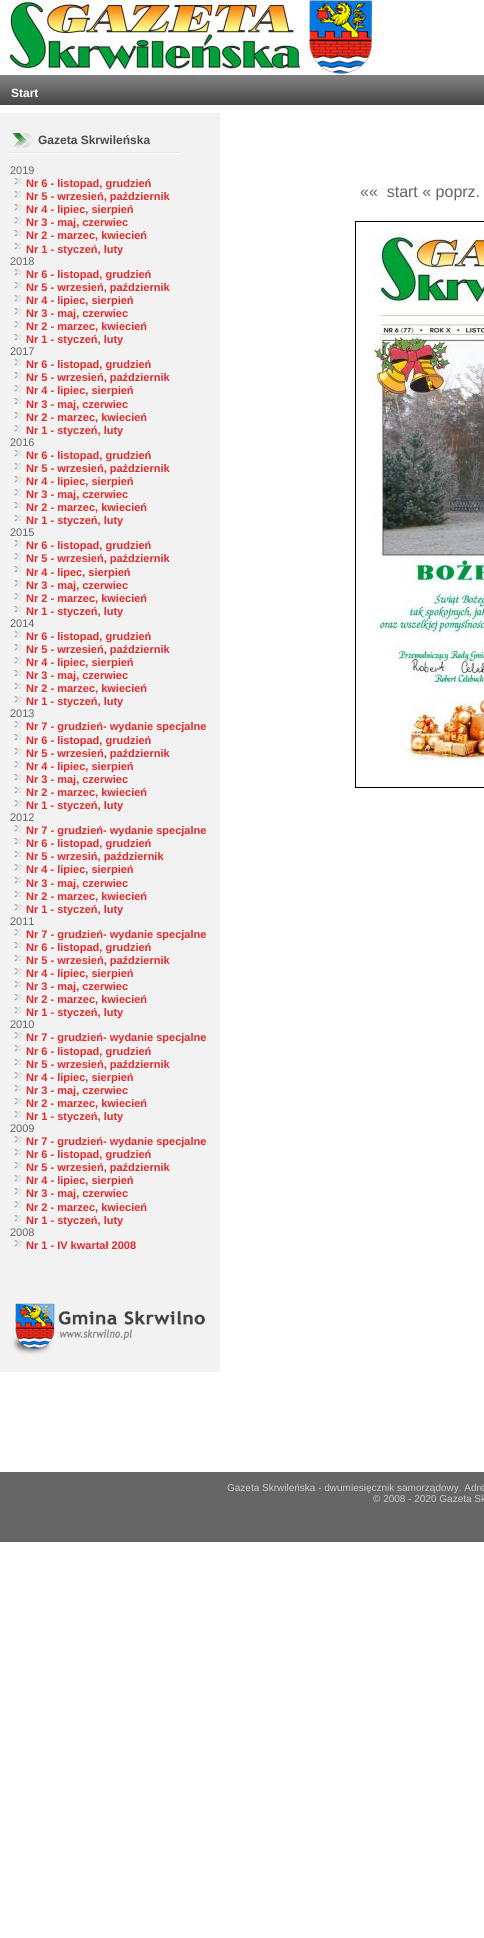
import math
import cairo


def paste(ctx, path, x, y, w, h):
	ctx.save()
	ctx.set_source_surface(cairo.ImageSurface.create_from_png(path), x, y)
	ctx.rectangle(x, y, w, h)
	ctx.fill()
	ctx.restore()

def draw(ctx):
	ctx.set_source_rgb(1, 1, 1)
	ctx.paint()
	paste(ctx, 'media/1.png', 0, 0, 376, 75)
	paste(ctx, 'media/2.png', 0, 75, 484, 30)
	ctx.select_font_face('Liberation Sans', cairo.FONT_SLANT_NORMAL, cairo.FONT_WEIGHT_BOLD)
	ctx.set_font_size(12)
	ctx.set_source_rgb(1, 1, 1)
	ctx.move_to(11, 97)
	ctx.show_text('Start')
	ctx.set_source_rgb(0.949, 0.949, 0.949)
	ctx.rectangle(0, 113, 220, 1259)
	ctx.fill()
	paste(ctx, 'media/3.png', 10, 133, 170, 21)
	ctx.set_source_rgb(0.29, 0.29, 0.29)
	ctx.move_to(38, 144)
	ctx.show_text('Gazeta Skrwileńska')
	ctx.select_font_face('Liberation Sans')
	ctx.set_font_size(11)
	ctx.set_source_rgb(0.392, 0.392, 0.392)
	ctx.move_to(10, 174)
	ctx.show_text('2019')
	paste(ctx, 'media/4.png', 14, 178, 9, 7)
	ctx.select_font_face('Liberation Sans', cairo.FONT_SLANT_NORMAL, cairo.FONT_WEIGHT_BOLD)
	ctx.set_source_rgb(0.886, 0.161, 0.173)
	ctx.move_to(26, 187)
	ctx.show_text('Nr 6 - listopad, grudzień')
	paste(ctx, 'media/4.png', 14, 191, 9, 7)
	ctx.move_to(26, 200)
	ctx.show_text('Nr 5 - wrzesień, październik')
	paste(ctx, 'media/4.png', 14, 204, 9, 7)
	ctx.move_to(26, 213)
	ctx.show_text('Nr 4 - lipiec, sierpień')
	paste(ctx, 'media/4.png', 14, 217, 9, 7)
	ctx.move_to(26, 226)
	ctx.show_text('Nr 3 - maj, czerwiec')
	paste(ctx, 'media/4.png', 14, 230, 9, 7)
	ctx.move_to(26, 239)
	ctx.show_text('Nr 2 - marzec, kwiecień')
	paste(ctx, 'media/4.png', 14, 243, 9, 7)
	ctx.move_to(26, 253)
	ctx.show_text('Nr 1 - styczeń, luty')
	ctx.select_font_face('Liberation Sans')
	ctx.set_source_rgb(0.392, 0.392, 0.392)
	ctx.move_to(10, 265)
	ctx.show_text('2018')
	paste(ctx, 'media/4.png', 14, 269, 9, 7)
	ctx.select_font_face('Liberation Sans', cairo.FONT_SLANT_NORMAL, cairo.FONT_WEIGHT_BOLD)
	ctx.set_source_rgb(0.886, 0.161, 0.173)
	ctx.move_to(26, 278)
	ctx.show_text('Nr 6 - listopad, grudzień')
	paste(ctx, 'media/4.png', 14, 282, 9, 7)
	ctx.move_to(26, 291)
	ctx.show_text('Nr 5 - wrzesień, październik')
	paste(ctx, 'media/4.png', 14, 295, 9, 7)
	ctx.move_to(26, 304)
	ctx.show_text('Nr 4 - lipiec, sierpień')
	paste(ctx, 'media/4.png', 14, 308, 9, 7)
	ctx.move_to(26, 317)
	ctx.show_text('Nr 3 - maj, czerwiec')
	paste(ctx, 'media/4.png', 14, 321, 9, 7)
	ctx.move_to(26, 330)
	ctx.show_text('Nr 2 - marzec, kwiecień')
	paste(ctx, 'media/4.png', 14, 334, 9, 7)
	ctx.move_to(26, 343)
	ctx.show_text('Nr 1 - styczeń, luty')
	ctx.select_font_face('Liberation Sans')
	ctx.set_source_rgb(0.392, 0.392, 0.392)
	ctx.move_to(10, 355)
	ctx.show_text('2017')
	paste(ctx, 'media/4.png', 14, 359, 9, 7)
	ctx.select_font_face('Liberation Sans', cairo.FONT_SLANT_NORMAL, cairo.FONT_WEIGHT_BOLD)
	ctx.set_source_rgb(0.886, 0.161, 0.173)
	ctx.move_to(26, 368)
	ctx.show_text('Nr 6 - listopad, grudzień')
	paste(ctx, 'media/4.png', 14, 372, 9, 7)
	ctx.move_to(26, 381)
	ctx.show_text('Nr 5 - wrzesień, październik')
	paste(ctx, 'media/4.png', 14, 385, 9, 7)
	ctx.move_to(26, 394)
	ctx.show_text('Nr 4 - lipiec, sierpień')
	paste(ctx, 'media/4.png', 14, 398, 9, 7)
	ctx.move_to(26, 408)
	ctx.show_text('Nr 3 - maj, czerwiec')
	paste(ctx, 'media/4.png', 14, 412, 9, 7)
	ctx.move_to(26, 421)
	ctx.show_text('Nr 2 - marzec, kwiecień')
	paste(ctx, 'media/4.png', 14, 425, 9, 7)
	ctx.move_to(26, 434)
	ctx.show_text('Nr 1 - styczeń, luty')
	ctx.select_font_face('Liberation Sans')
	ctx.set_source_rgb(0.392, 0.392, 0.392)
	ctx.move_to(10, 446)
	ctx.show_text('2016')
	paste(ctx, 'media/4.png', 14, 450, 9, 7)
	ctx.select_font_face('Liberation Sans', cairo.FONT_SLANT_NORMAL, cairo.FONT_WEIGHT_BOLD)
	ctx.set_source_rgb(0.886, 0.161, 0.173)
	ctx.move_to(26, 459)
	ctx.show_text('Nr 6 - listopad, grudzień')
	paste(ctx, 'media/4.png', 14, 463, 9, 7)
	ctx.move_to(26, 472)
	ctx.show_text('Nr 5 - wrzesień, październik')
	paste(ctx, 'media/4.png', 14, 476, 9, 7)
	ctx.move_to(26, 485)
	ctx.show_text('Nr 4 - lipiec, sierpień')
	paste(ctx, 'media/4.png', 14, 489, 9, 7)
	ctx.move_to(26, 498)
	ctx.show_text('Nr 3 - maj, czerwiec')
	paste(ctx, 'media/4.png', 14, 502, 9, 7)
	ctx.move_to(26, 511)
	ctx.show_text('Nr 2 - marzec, kwiecień')
	paste(ctx, 'media/4.png', 14, 515, 9, 7)
	ctx.move_to(26, 524)
	ctx.show_text('Nr 1 - styczeń, luty')
	ctx.select_font_face('Liberation Sans')
	ctx.set_source_rgb(0.392, 0.392, 0.392)
	ctx.move_to(10, 536)
	ctx.show_text('2015')
	paste(ctx, 'media/4.png', 14, 540, 9, 7)
	ctx.select_font_face('Liberation Sans', cairo.FONT_SLANT_NORMAL, cairo.FONT_WEIGHT_BOLD)
	ctx.set_source_rgb(0.886, 0.161, 0.173)
	ctx.move_to(26, 549)
	ctx.show_text('Nr 6 - listopad, grudzień')
	paste(ctx, 'media/4.png', 14, 553, 9, 7)
	ctx.move_to(26, 562)
	ctx.show_text('Nr 5 - wrzesień, październik')
	paste(ctx, 'media/4.png', 14, 566, 9, 7)
	ctx.move_to(26, 576)
	ctx.show_text('Nr 4 - lipec, sierpień')
	paste(ctx, 'media/4.png', 14, 580, 9, 7)
	ctx.move_to(26, 589)
	ctx.show_text('Nr 3 - maj, czerwiec')
	paste(ctx, 'media/4.png', 14, 593, 9, 7)
	ctx.move_to(26, 602)
	ctx.show_text('Nr 2 - marzec, kwiecień')
	paste(ctx, 'media/4.png', 14, 606, 9, 7)
	ctx.move_to(26, 615)
	ctx.show_text('Nr 1 - styczeń, luty')
	ctx.select_font_face('Liberation Sans')
	ctx.set_source_rgb(0.392, 0.392, 0.392)
	ctx.move_to(10, 627)
	ctx.show_text('2014')
	paste(ctx, 'media/4.png', 14, 631, 9, 7)
	ctx.select_font_face('Liberation Sans', cairo.FONT_SLANT_NORMAL, cairo.FONT_WEIGHT_BOLD)
	ctx.set_source_rgb(0.886, 0.161, 0.173)
	ctx.move_to(26, 640)
	ctx.show_text('Nr 6 - listopad, grudzień')
	paste(ctx, 'media/4.png', 14, 644, 9, 7)
	ctx.move_to(26, 653)
	ctx.show_text('Nr 5 - wrzesień, październik')
	paste(ctx, 'media/4.png', 14, 657, 9, 7)
	ctx.move_to(26, 666)
	ctx.show_text('Nr 4 - lipiec, sierpień')
	paste(ctx, 'media/4.png', 14, 670, 9, 7)
	ctx.move_to(26, 679)
	ctx.show_text('Nr 3 - maj, czerwiec')
	paste(ctx, 'media/4.png', 14, 683, 9, 7)
	ctx.move_to(26, 692)
	ctx.show_text('Nr 2 - marzec, kwiecień')
	paste(ctx, 'media/4.png', 14, 696, 9, 7)
	ctx.move_to(26, 705)
	ctx.show_text('Nr 1 - styczeń, luty')
	ctx.select_font_face('Liberation Sans')
	ctx.set_source_rgb(0.392, 0.392, 0.392)
	ctx.move_to(10, 717)
	ctx.show_text('2013')
	paste(ctx, 'media/4.png', 14, 721, 9, 7)
	ctx.select_font_face('Liberation Sans', cairo.FONT_SLANT_NORMAL, cairo.FONT_WEIGHT_BOLD)
	ctx.set_source_rgb(0.886, 0.161, 0.173)
	ctx.move_to(26, 730)
	ctx.show_text('Nr 7 - grudzień- wydanie specjalne')
	paste(ctx, 'media/4.png', 14, 734, 9, 7)
	ctx.move_to(26, 744)
	ctx.show_text('Nr 6 - listopad, grudzień')
	paste(ctx, 'media/4.png', 14, 748, 9, 7)
	ctx.move_to(26, 757)
	ctx.show_text('Nr 5 - wrzesień, październik')
	paste(ctx, 'media/4.png', 14, 761, 9, 7)
	ctx.move_to(26, 770)
	ctx.show_text('Nr 4 - lipiec, sierpień')
	paste(ctx, 'media/4.png', 14, 774, 9, 7)
	ctx.move_to(26, 783)
	ctx.show_text('Nr 3 - maj, czerwiec')
	paste(ctx, 'media/4.png', 14, 787, 9, 7)
	ctx.move_to(26, 796)
	ctx.show_text('Nr 2 - marzec, kwiecień')
	paste(ctx, 'media/4.png', 14, 800, 9, 7)
	ctx.move_to(26, 809)
	ctx.show_text('Nr 1 - styczeń, luty')
	ctx.select_font_face('Liberation Sans')
	ctx.set_source_rgb(0.392, 0.392, 0.392)
	ctx.move_to(10, 821)
	ctx.show_text('2012')
	paste(ctx, 'media/4.png', 14, 825, 9, 7)
	ctx.select_font_face('Liberation Sans', cairo.FONT_SLANT_NORMAL, cairo.FONT_WEIGHT_BOLD)
	ctx.set_source_rgb(0.886, 0.161, 0.173)
	ctx.move_to(26, 834)
	ctx.show_text('Nr 7 - grudzień- wydanie specjalne')
	paste(ctx, 'media/4.png', 14, 838, 9, 7)
	ctx.move_to(26, 847)
	ctx.show_text('Nr 6 - listopad, grudzień')
	paste(ctx, 'media/4.png', 14, 851, 9, 7)
	ctx.move_to(26, 860)
	ctx.show_text('Nr 5 - wrzesiń, październik')
	paste(ctx, 'media/4.png', 14, 864, 9, 7)
	ctx.move_to(26, 873)
	ctx.show_text('Nr 4 - lipiec, sierpień')
	paste(ctx, 'media/4.png', 14, 877, 9, 7)
	ctx.move_to(26, 887)
	ctx.show_text('Nr 3 - maj, czerwiec')
	paste(ctx, 'media/4.png', 14, 891, 9, 7)
	ctx.move_to(26, 900)
	ctx.show_text('Nr 2 - marzec, kwiecień')
	paste(ctx, 'media/4.png', 14, 904, 9, 7)
	ctx.move_to(26, 913)
	ctx.show_text('Nr 1 - styczeń, luty')
	ctx.select_font_face('Liberation Sans')
	ctx.set_source_rgb(0.392, 0.392, 0.392)
	ctx.move_to(10, 925)
	ctx.show_text('2011')
	paste(ctx, 'media/4.png', 14, 929, 9, 7)
	ctx.select_font_face('Liberation Sans', cairo.FONT_SLANT_NORMAL, cairo.FONT_WEIGHT_BOLD)
	ctx.set_source_rgb(0.886, 0.161, 0.173)
	ctx.move_to(26, 938)
	ctx.show_text('Nr 7 - grudzień- wydanie specjalne')
	paste(ctx, 'media/4.png', 14, 942, 9, 7)
	ctx.move_to(26, 951)
	ctx.show_text('Nr 6 - listopad, grudzień')
	paste(ctx, 'media/4.png', 14, 955, 9, 7)
	ctx.move_to(26, 964)
	ctx.show_text('Nr 5 - wrzesień, październik')
	paste(ctx, 'media/4.png', 14, 968, 9, 7)
	ctx.move_to(26, 977)
	ctx.show_text('Nr 4 - lipiec, sierpień')
	paste(ctx, 'media/4.png', 14, 981, 9, 7)
	ctx.move_to(26, 990)
	ctx.show_text('Nr 3 - maj, czerwiec')
	paste(ctx, 'media/4.png', 14, 994, 9, 7)
	ctx.move_to(26, 1003)
	ctx.show_text('Nr 2 - marzec, kwiecień')
	paste(ctx, 'media/4.png', 14, 1007, 9, 7)
	ctx.move_to(26, 1016)
	ctx.show_text('Nr 1 - styczeń, luty')
	ctx.select_font_face('Liberation Sans')
	ctx.set_source_rgb(0.392, 0.392, 0.392)
	ctx.move_to(10, 1028)
	ctx.show_text('2010')
	paste(ctx, 'media/4.png', 14, 1032, 9, 7)
	ctx.select_font_face('Liberation Sans', cairo.FONT_SLANT_NORMAL, cairo.FONT_WEIGHT_BOLD)
	ctx.set_source_rgb(0.886, 0.161, 0.173)
	ctx.move_to(26, 1041)
	ctx.show_text('Nr 7 - grudzień- wydanie specjalne')
	paste(ctx, 'media/4.png', 14, 1045, 9, 7)
	ctx.move_to(26, 1055)
	ctx.show_text('Nr 6 - listopad, grudzień')
	paste(ctx, 'media/4.png', 14, 1059, 9, 7)
	ctx.move_to(26, 1068)
	ctx.show_text('Nr 5 - wrzesień, październik')
	paste(ctx, 'media/4.png', 14, 1072, 9, 7)
	ctx.move_to(26, 1081)
	ctx.show_text('Nr 4 - lipiec, sierpień')
	paste(ctx, 'media/4.png', 14, 1085, 9, 7)
	ctx.move_to(26, 1094)
	ctx.show_text('Nr 3 - maj, czerwiec')
	paste(ctx, 'media/4.png', 14, 1098, 9, 7)
	ctx.move_to(26, 1107)
	ctx.show_text('Nr 2 - marzec, kwiecień')
	paste(ctx, 'media/4.png', 14, 1111, 9, 7)
	ctx.move_to(26, 1120)
	ctx.show_text('Nr 1 - styczeń, luty')
	ctx.select_font_face('Liberation Sans')
	ctx.set_source_rgb(0.392, 0.392, 0.392)
	ctx.move_to(10, 1132)
	ctx.show_text('2009')
	paste(ctx, 'media/4.png', 14, 1136, 9, 7)
	ctx.select_font_face('Liberation Sans', cairo.FONT_SLANT_NORMAL, cairo.FONT_WEIGHT_BOLD)
	ctx.set_source_rgb(0.886, 0.161, 0.173)
	ctx.move_to(26, 1145)
	ctx.show_text('Nr 7 - grudzień- wydanie specjalne')
	paste(ctx, 'media/4.png', 14, 1149, 9, 7)
	ctx.move_to(26, 1158)
	ctx.show_text('Nr 6 - listopad, grudzień')
	paste(ctx, 'media/4.png', 14, 1162, 9, 7)
	ctx.move_to(26, 1171)
	ctx.show_text('Nr 5 - wrzesień, październik')
	paste(ctx, 'media/4.png', 14, 1175, 9, 7)
	ctx.move_to(26, 1184)
	ctx.show_text('Nr 4 - lipiec, sierpień')
	paste(ctx, 'media/4.png', 14, 1188, 9, 7)
	ctx.move_to(26, 1197)
	ctx.show_text('Nr 3 - maj, czerwiec')
	paste(ctx, 'media/4.png', 14, 1201, 9, 7)
	ctx.move_to(26, 1211)
	ctx.show_text('Nr 2 - marzec, kwiecień')
	paste(ctx, 'media/4.png', 14, 1215, 9, 7)
	ctx.move_to(26, 1224)
	ctx.show_text('Nr 1 - styczeń, luty')
	ctx.select_font_face('Liberation Sans')
	ctx.set_source_rgb(0.392, 0.392, 0.392)
	ctx.move_to(10, 1236)
	ctx.show_text('2008')
	paste(ctx, 'media/4.png', 14, 1240, 9, 7)
	ctx.select_font_face('Liberation Sans', cairo.FONT_SLANT_NORMAL, cairo.FONT_WEIGHT_BOLD)
	ctx.set_source_rgb(0.886, 0.161, 0.173)
	ctx.move_to(26, 1249)
	ctx.show_text('Nr 1 - IV kwartał 2008')
	paste(ctx, 'media/5.png', 12, 1303, 193, 52)
	ctx.select_font_face('Liberation Sans')
	ctx.set_font_size(16)
	ctx.set_source_rgb(0.392, 0.392, 0.392)
	ctx.move_to(360, 197)
	ctx.show_text('««  start « poprz.')
	ctx.rectangle(355.5, 221.5, 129, 566)
	ctx.set_source_rgb(0, 0, 0)
	ctx.set_line_width(1)
	ctx.stroke()
	paste(ctx, 'media/6.png', 371, 231, 113, 535)
	ctx.set_source_rgb(0.4, 0.4, 0.4)
	ctx.rectangle(0, 1472, 484, 70)
	ctx.fill()
	ctx.set_font_size(10)
	ctx.set_source_rgb(0.8, 0.8, 0.8)
	ctx.move_to(227, 1491)
	ctx.show_text('Gazeta Skrwileńska - dwumiesięcznik samorządowy. Adre')
	ctx.move_to(373, 1502)
	ctx.show_text('© 2008 - 2020 Gazeta Sk')


surface = cairo.ImageSurface(cairo.FORMAT_RGB24, 484, 1938)
ctx = cairo.Context(surface)
options = cairo.FontOptions()
options.set_hint_metrics(cairo.HINT_METRICS_OFF)
options.set_hint_style(cairo.HINT_STYLE_NONE)
ctx.set_font_options(options)
ctx.set_miter_limit(4)
draw(ctx)
surface.write_to_png('image.png')
